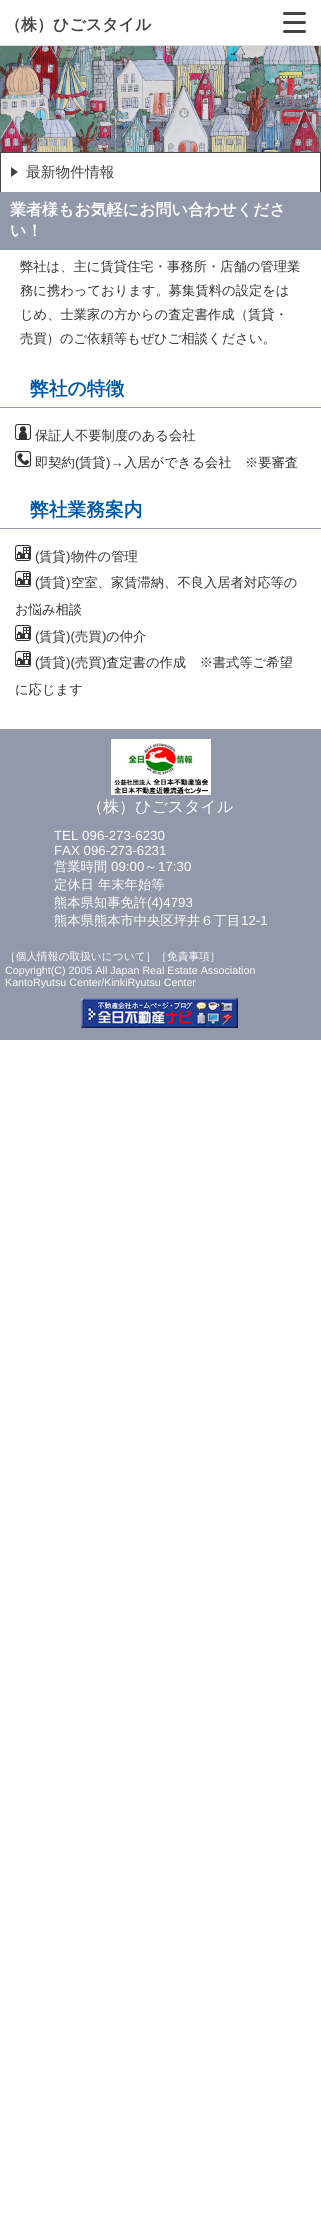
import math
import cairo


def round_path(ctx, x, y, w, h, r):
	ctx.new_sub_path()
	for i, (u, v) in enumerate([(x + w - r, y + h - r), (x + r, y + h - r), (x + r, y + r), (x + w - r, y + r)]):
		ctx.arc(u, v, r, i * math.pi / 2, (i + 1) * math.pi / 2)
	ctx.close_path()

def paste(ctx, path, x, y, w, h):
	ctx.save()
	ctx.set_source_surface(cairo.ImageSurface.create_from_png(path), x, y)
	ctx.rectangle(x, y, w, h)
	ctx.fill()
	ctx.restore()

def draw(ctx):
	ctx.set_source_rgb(1, 1, 1)
	ctx.paint()
	ctx.set_source_rgb(0.867, 0.867, 0.867)
	ctx.rectangle(0, 45, 321, 1)
	ctx.fill()
	ctx.select_font_face('WenQuanYi Zen Hei', cairo.FONT_SLANT_NORMAL, cairo.FONT_WEIGHT_BOLD)
	ctx.set_font_size(16)
	ctx.set_source_rgb(0.267, 0.267, 0.267)
	ctx.move_to(5, 30)
	ctx.show_text('（株）ひごスタイル')
	round_path(ctx, 283, 12, 23, 3, 1.5)
	ctx.fill()
	round_path(ctx, 283, 21, 23, 3, 1.5)
	ctx.fill()
	round_path(ctx, 283, 30, 23, 3, 1.5)
	ctx.fill()
	paste(ctx, 'media/1.png', 0, 46, 321, 106)
	ctx.rectangle(0, 152, 321, 1)
	ctx.rectangle(0, 152, 1, 40)
	ctx.rectangle(320, 153, 1, 39)
	ctx.fill()
	ctx.new_path()
	ctx.move_to(11, 177)
	ctx.line_to(11, 167)
	ctx.line_to(18, 172)
	ctx.close_path()
	ctx.fill()
	ctx.select_font_face('WenQuanYi Zen Hei Medium')
	ctx.set_font_size(14.75)
	ctx.move_to(26, 177)
	ctx.show_text('最新物件情報')
	ctx.set_source_rgb(0.573, 0.6, 0.671)
	ctx.rectangle(0, 192, 321, 58)
	ctx.fill()
	ctx.select_font_face('WenQuanYi Zen Hei', cairo.FONT_SLANT_NORMAL, cairo.FONT_WEIGHT_BOLD)
	ctx.set_font_size(16)
	ctx.set_source_rgb(1, 1, 1)
	ctx.move_to(10, 215)
	ctx.show_text('業者様もお気軽にお問い合わせくださ')
	ctx.move_to(10, 236)
	ctx.show_text('い！')
	ctx.select_font_face('WenQuanYi Zen Hei Medium')
	ctx.set_font_size(13.3)
	ctx.set_source_rgb(0.2, 0.2, 0.2)
	for x, y, s in [
		(20, 271, '弊社は、主に賃貸住宅・事務所・店舗の管理業'),
		(20, 295, '務に携わっております。募集賃料の設定をは'),
		(20, 319, 'じめ、士業家の方からの査定書作成（賃貸・'),
		(20, 343, '売買）のご依頼等もぜひご相談ください。'),
	]:
		ctx.move_to(x, y)
		ctx.show_text(s)
	ctx.set_source_rgb(0.573, 0.6, 0.671)
	ctx.rectangle(0, 407, 321, 1)
	ctx.fill()
	ctx.select_font_face('WenQuanYi Zen Hei', cairo.FONT_SLANT_NORMAL, cairo.FONT_WEIGHT_BOLD)
	ctx.set_font_size(18.75)
	ctx.set_source_rgb(0, 0.349, 0.659)
	ctx.move_to(30, 395)
	ctx.show_text('弊社の特徴')
	paste(ctx, 'media/2.png', 15, 424, 16, 16)
	ctx.select_font_face('WenQuanYi Zen Hei Medium')
	ctx.set_font_size(13.3)
	ctx.set_source_rgb(0.2, 0.2, 0.2)
	ctx.move_to(35, 440)
	ctx.show_text('保証人不要制度のある会社')
	paste(ctx, 'media/3.png', 15, 451, 16, 16)
	ctx.move_to(35, 467)
	ctx.show_text('即契約')
	ctx.select_font_face('Liberation Sans')
	ctx.move_to(75, 467)
	ctx.show_text('(')
	ctx.select_font_face('WenQuanYi Zen Hei Medium')
	ctx.move_to(79, 467)
	ctx.show_text('賃貸')
	ctx.select_font_face('Liberation Sans')
	ctx.move_to(106, 467)
	ctx.show_text(')→')
	ctx.select_font_face('WenQuanYi Zen Hei Medium')
	ctx.move_to(124, 467)
	ctx.show_text('入居ができる会社　※要審査')
	ctx.set_source_rgb(0.573, 0.6, 0.671)
	ctx.rectangle(0, 528, 321, 1)
	ctx.fill()
	ctx.select_font_face('WenQuanYi Zen Hei', cairo.FONT_SLANT_NORMAL, cairo.FONT_WEIGHT_BOLD)
	ctx.set_font_size(18.75)
	ctx.set_source_rgb(0, 0.349, 0.659)
	ctx.move_to(30, 516)
	ctx.show_text('弊社業務案内')
	paste(ctx, 'media/4.png', 15, 545, 16, 16)
	ctx.select_font_face('Liberation Sans')
	ctx.set_font_size(13.3)
	ctx.set_source_rgb(0.2, 0.2, 0.2)
	ctx.move_to(35, 561)
	ctx.show_text('(')
	ctx.select_font_face('WenQuanYi Zen Hei Medium')
	ctx.move_to(39, 561)
	ctx.show_text('賃貸')
	ctx.select_font_face('Liberation Sans')
	ctx.move_to(66, 561)
	ctx.show_text(')')
	ctx.select_font_face('WenQuanYi Zen Hei Medium')
	ctx.move_to(71, 561)
	ctx.show_text('物件の管理')
	paste(ctx, 'media/4.png', 15, 571, 16, 16)
	ctx.select_font_face('Liberation Sans')
	ctx.move_to(35, 587)
	ctx.show_text('(')
	ctx.select_font_face('WenQuanYi Zen Hei Medium')
	ctx.move_to(39, 587)
	ctx.show_text('賃貸')
	ctx.select_font_face('Liberation Sans')
	ctx.move_to(66, 587)
	ctx.show_text(')')
	ctx.select_font_face('WenQuanYi Zen Hei Medium')
	ctx.move_to(71, 587)
	ctx.show_text('空室、家賃滞納、不良入居者対応等の')
	ctx.move_to(15, 614)
	ctx.show_text('お悩み相談')
	paste(ctx, 'media/4.png', 15, 625, 16, 16)
	ctx.select_font_face('Liberation Sans')
	ctx.move_to(35, 641)
	ctx.show_text('(')
	ctx.select_font_face('WenQuanYi Zen Hei Medium')
	ctx.move_to(39, 641)
	ctx.show_text('賃貸')
	ctx.select_font_face('Liberation Sans')
	ctx.move_to(66, 641)
	ctx.show_text(')(')
	ctx.select_font_face('WenQuanYi Zen Hei Medium')
	ctx.move_to(75, 641)
	ctx.show_text('売買')
	ctx.select_font_face('Liberation Sans')
	ctx.move_to(102, 641)
	ctx.show_text(')')
	ctx.select_font_face('WenQuanYi Zen Hei Medium')
	ctx.move_to(106, 641)
	ctx.show_text('の仲介')
	paste(ctx, 'media/4.png', 15, 651, 16, 16)
	ctx.select_font_face('Liberation Sans')
	ctx.move_to(35, 667)
	ctx.show_text('(')
	ctx.select_font_face('WenQuanYi Zen Hei Medium')
	ctx.move_to(39, 667)
	ctx.show_text('賃貸')
	ctx.select_font_face('Liberation Sans')
	ctx.move_to(66, 667)
	ctx.show_text(')(')
	ctx.select_font_face('WenQuanYi Zen Hei Medium')
	ctx.move_to(75, 667)
	ctx.show_text('売買')
	ctx.select_font_face('Liberation Sans')
	ctx.move_to(102, 667)
	ctx.show_text(')')
	ctx.select_font_face('WenQuanYi Zen Hei Medium')
	ctx.move_to(106, 667)
	ctx.show_text('査定書の作成　※書式等ご希望')
	ctx.move_to(15, 694)
	ctx.show_text('に応じます')
	ctx.set_source_rgb(0.573, 0.6, 0.671)
	ctx.rectangle(0, 729, 321, 311)
	ctx.fill()
	paste(ctx, 'media/5.png', 111, 739, 100, 56)
	ctx.set_font_size(16)
	ctx.set_source_rgb(1, 1, 1)
	ctx.move_to(87, 812)
	ctx.show_text('（株）ひごスタイル')
	ctx.select_font_face('Liberation Sans')
	ctx.set_font_size(13.3)
	ctx.move_to(54, 840)
	ctx.show_text('TEL 096-273-6230')
	ctx.move_to(54, 855)
	ctx.show_text('FAX 096-273-6231')
	ctx.select_font_face('WenQuanYi Zen Hei Medium')
	ctx.move_to(54, 871)
	ctx.show_text('営業時間')
	ctx.select_font_face('Liberation Sans')
	ctx.move_to(111, 871)
	ctx.show_text('09:00')
	ctx.select_font_face('WenQuanYi Zen Hei Medium')
	ctx.move_to(144, 871)
	ctx.show_text('～')
	ctx.select_font_face('Liberation Sans')
	ctx.move_to(158, 871)
	ctx.show_text('17:30')
	ctx.select_font_face('WenQuanYi Zen Hei Medium')
	for x, y, s in [
		(54, 889, '定休日'),
		(98, 889, '年末年始等'),
		(54, 907, '熊本県知事免許'),
	]:
		ctx.move_to(x, y)
		ctx.show_text(s)
	ctx.select_font_face('Liberation Sans')
	ctx.move_to(147, 907)
	ctx.show_text('(4)4793')
	ctx.select_font_face('WenQuanYi Zen Hei Medium')
	ctx.move_to(54, 925)
	ctx.show_text('熊本県熊本市中央区坪井６丁目')
	ctx.select_font_face('Liberation Sans')
	ctx.move_to(241, 925)
	ctx.show_text('12-1')
	ctx.select_font_face('WenQuanYi Zen Hei Medium')
	ctx.set_font_size(10.7)
	ctx.move_to(5, 960)
	ctx.show_text('［個人情報の取扱いについて］［免責事項］')
	ctx.select_font_face('Liberation Sans')
	ctx.move_to(5, 974)
	ctx.show_text('Copyright(C) 2005 All Japan Real Estate Association')
	ctx.move_to(5, 986)
	ctx.show_text('KantoRyutsu Center/KinkiRyutsu Center')
	paste(ctx, 'media/6.png', 81, 998, 157, 30)


surface = cairo.ImageSurface(cairo.FORMAT_RGB24, 321, 2230)
ctx = cairo.Context(surface)
options = cairo.FontOptions()
options.set_hint_metrics(cairo.HINT_METRICS_OFF)
options.set_hint_style(cairo.HINT_STYLE_NONE)
ctx.set_font_options(options)
ctx.set_miter_limit(4)
draw(ctx)
surface.write_to_png('image.png')
